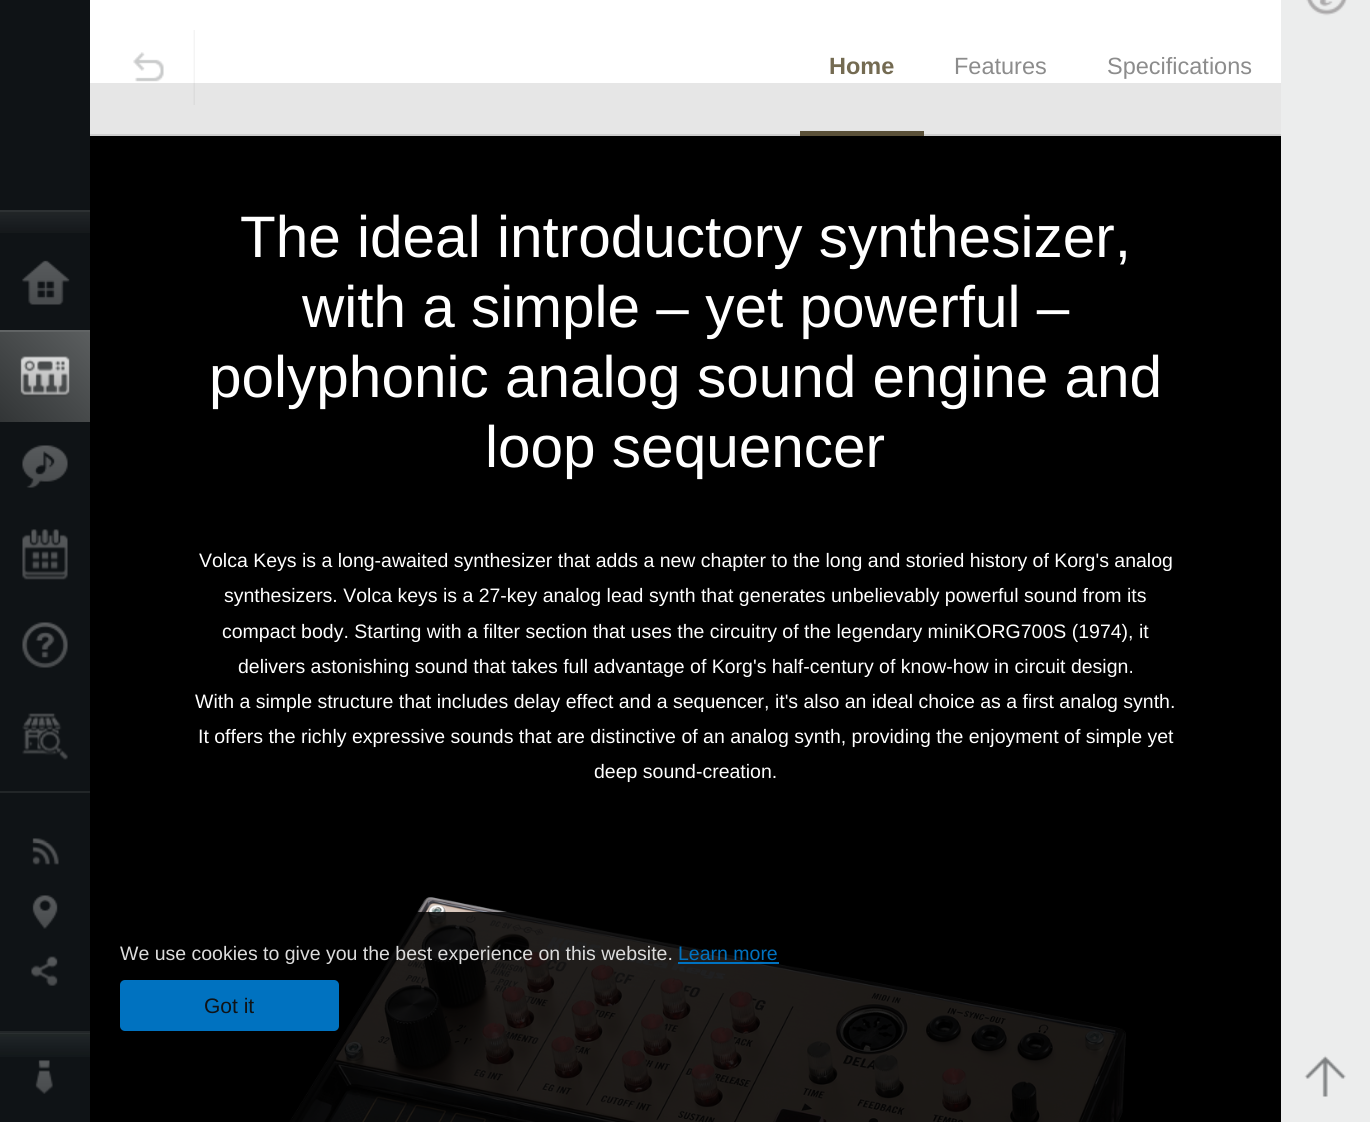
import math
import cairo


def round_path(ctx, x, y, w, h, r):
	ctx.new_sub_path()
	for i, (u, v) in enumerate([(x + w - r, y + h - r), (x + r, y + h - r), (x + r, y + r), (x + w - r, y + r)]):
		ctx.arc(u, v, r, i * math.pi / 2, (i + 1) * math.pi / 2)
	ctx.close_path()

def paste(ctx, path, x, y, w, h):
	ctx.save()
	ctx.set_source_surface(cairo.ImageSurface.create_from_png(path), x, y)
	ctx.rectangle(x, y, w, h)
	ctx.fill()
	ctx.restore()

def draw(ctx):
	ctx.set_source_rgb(0.059, 0.078, 0.086)
	ctx.paint()
	paste(ctx, 'media/1.png', 0, 212, 90, 21)
	ctx.set_source_rgb(0.176, 0.192, 0.2)
	ctx.rectangle(0, 210, 90, 2)
	ctx.fill()
	paste(ctx, 'media/2.png', 22, 260, 48, 45)
	gradient = cairo.LinearGradient(0, 422, 90, 332)
	gradient.add_color_stop_rgba(0, 0.196, 0.208, 0.212, 1)
	gradient.add_color_stop_rgba(1, 0.357, 0.369, 0.373, 1)
	ctx.set_source(gradient)
	ctx.rectangle(0, 332, 90, 90)
	ctx.fill()
	ctx.set_source_rgb(0.38, 0.392, 0.396)
	ctx.rectangle(0, 330, 90, 2)
	ctx.fill()
	paste(ctx, 'media/3.png', 20, 356, 50, 41)
	paste(ctx, 'media/4.png', 22, 445, 46, 43)
	paste(ctx, 'media/5.png', 22, 529, 46, 51)
	paste(ctx, 'media/6.png', 22, 622, 46, 46)
	paste(ctx, 'media/7.png', 22, 713, 46, 47)
	ctx.set_source_rgb(0.133, 0.149, 0.157)
	ctx.rectangle(0, 791, 90, 2)
	ctx.fill()
	paste(ctx, 'media/8.png', 32, 838, 27, 27)
	paste(ctx, 'media/9.png', 32, 895, 26, 34)
	paste(ctx, 'media/10.png', 31, 956, 27, 30)
	paste(ctx, 'media/11.png', 0, 1033, 90, 24)
	ctx.rectangle(0, 1031, 90, 2)
	ctx.fill()
	paste(ctx, 'media/12.png', 35, 1060, 18, 34)
	ctx.set_source_rgb(1, 1, 1)
	ctx.rectangle(90, 0, 1191, 83)
	ctx.fill()
	ctx.set_source_rgb(0.808, 0.808, 0.808)
	ctx.rectangle(90, 134, 1191, 2)
	ctx.fill()
	ctx.set_source_rgb(0.902, 0.902, 0.902)
	ctx.rectangle(90, 83, 1191, 51)
	ctx.fill()
	paste(ctx, 'media/13.png', 133, 30, 62, 75)
	ctx.set_source_rgb(0.357, 0.318, 0.224)
	ctx.rectangle(800, 131, 124, 5)
	ctx.fill()
	ctx.select_font_face('Liberation Sans', cairo.FONT_SLANT_NORMAL, cairo.FONT_WEIGHT_BOLD)
	ctx.set_font_size(23.5)
	ctx.set_source_rgb(0.455, 0.42, 0.322)
	ctx.move_to(829, 74)
	ctx.show_text('Home')
	ctx.select_font_face('Liberation Sans')
	ctx.set_source_rgb(0.549, 0.549, 0.549)
	ctx.move_to(954, 74)
	ctx.show_text('Features')
	ctx.move_to(1107, 74)
	ctx.show_text('Specifications')
	ctx.set_source_rgb(0.925, 0.929, 0.929)
	ctx.rectangle(1281, 0, 89, 1122)
	ctx.fill()
	paste(ctx, 'media/14.png', 1306, 0, 41, 16)
	ctx.set_source_rgb(0, 0, 0)
	ctx.rectangle(90, 136, 1191, 986)
	ctx.fill()
	ctx.set_font_size(58.5)
	ctx.set_source_rgb(1, 1, 1)
	for x, y, s in [
		(240, 257, 'The ideal introductory synthesizer,'),
		(302, 327, 'with a simple – yet powerful –'),
		(209, 397, 'polyphonic analog sound engine and'),
		(485, 467, 'loop sequencer'),
	]:
		ctx.move_to(x, y)
		ctx.show_text(s)
	ctx.set_font_size(19.5)
	for x, y, s in [
		(199, 567, 'Volca Keys is a long-awaited synthesizer that adds a new chapter to the long and storied history of Korg\'s analog'),
		(224, 602, 'synthesizers. Volca keys is a 27-key analog lead synth that generates unbelievably powerful sound from its'),
		(222, 638, 'compact body. Starting with a filter section that uses the circuitry of the legendary miniKORG700S (1974), it'),
		(238, 673, 'delivers astonishing sound that takes full advantage of Korg\'s half-century of know-how in circuit design.'),
		(195, 708, 'With a simple structure that includes delay effect and a sequencer, it\'s also an ideal choice as a first analog synth.'),
		(198, 743, 'It offers the richly expressive sounds that are distinctive of an analog synth, providing the enjoyment of simple yet'),
		(594, 778, 'deep sound-creation.'),
	]:
		ctx.move_to(x, y)
		ctx.show_text(s)
	paste(ctx, 'media/15.png', 289, 897, 837, 225)
	ctx.set_source_rgb(0.863, 0.863, 0.863)
	ctx.move_to(120, 960)
	ctx.show_text('We use cookies to give you the best experience on this website.')
	ctx.set_source_rgb(0, 0.447, 0.753)
	ctx.move_to(678, 960)
	ctx.show_text('Learn more')
	ctx.rectangle(678, 962, 101, 2)
	ctx.fill()
	round_path(ctx, 120, 980, 219, 51, 5)
	ctx.fill()
	ctx.set_font_size(21)
	ctx.set_source_rgb(0.059, 0.078, 0.086)
	ctx.move_to(204, 1013)
	ctx.show_text('Got it')
	paste(ctx, 'media/16.png', 1304, 1055, 42, 42)


surface = cairo.ImageSurface(cairo.FORMAT_RGB24, 1370, 1122)
ctx = cairo.Context(surface)
options = cairo.FontOptions()
options.set_hint_metrics(cairo.HINT_METRICS_OFF)
options.set_hint_style(cairo.HINT_STYLE_NONE)
ctx.set_font_options(options)
ctx.set_miter_limit(4)
draw(ctx)
surface.write_to_png('image.png')
